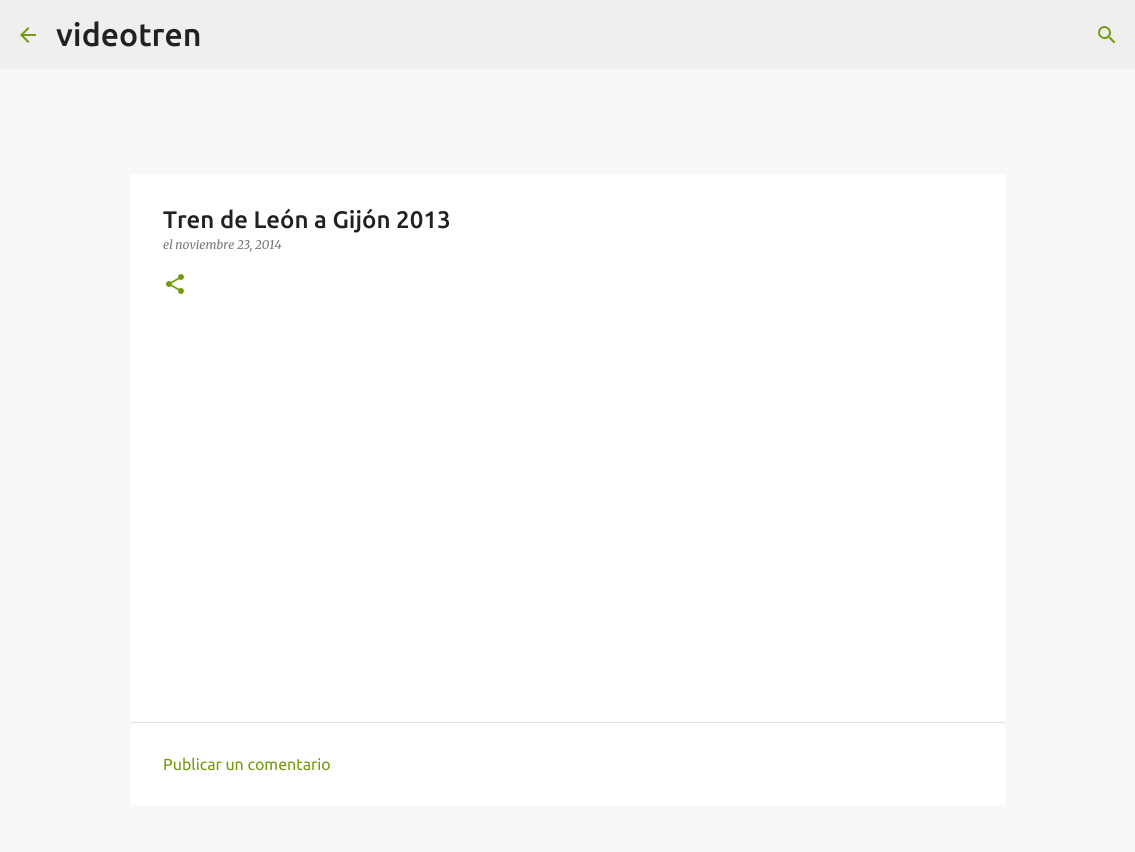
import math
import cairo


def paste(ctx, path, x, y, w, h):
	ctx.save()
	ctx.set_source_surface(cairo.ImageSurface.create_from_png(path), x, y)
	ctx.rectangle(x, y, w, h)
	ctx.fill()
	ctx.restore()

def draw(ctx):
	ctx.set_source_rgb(0.969, 0.969, 0.969)
	ctx.paint()
	ctx.set_source_rgb(0.937, 0.937, 0.937)
	ctx.rectangle(0, 0, 1135, 69)
	ctx.fill()
	paste(ctx, 'media/1.png', 20, 27, 16, 16)
	ctx.select_font_face('Ubuntu Medium')
	ctx.set_font_size(32)
	ctx.set_source_rgb(0.129, 0.129, 0.129)
	ctx.move_to(56, 46)
	ctx.show_text('videotren')
	paste(ctx, 'media/2.png', 1098, 26, 18, 18)
	ctx.set_source_rgb(1, 1, 1)
	ctx.rectangle(131, 174, 874, 548)
	ctx.fill()
	ctx.set_font_size(24)
	ctx.set_source_rgb(0.129, 0.129, 0.129)
	ctx.move_to(163, 228)
	ctx.show_text('Tren de León a Gijón 2013')
	ctx.select_font_face('Merriweather', cairo.FONT_SLANT_ITALIC)
	ctx.set_font_size(12)
	ctx.set_source_rgb(0.459, 0.459, 0.459)
	ctx.move_to(163, 249)
	ctx.show_text('el noviembre 23, 2014')
	paste(ctx, 'media/3.png', 166, 274, 18, 20)
	ctx.set_source_rgb(1, 1, 1)
	ctx.rectangle(131, 723, 874, 82)
	ctx.fill()
	ctx.set_source_rgb(0.878, 0.878, 0.878)
	ctx.rectangle(131, 722, 874, 1)
	ctx.fill()
	ctx.select_font_face('Ubuntu')
	ctx.set_font_size(16)
	ctx.set_source_rgb(0.447, 0.612, 0.043)
	ctx.move_to(163, 770)
	ctx.show_text('Publicar un comentario')


surface = cairo.ImageSurface(cairo.FORMAT_RGB24, 1135, 852)
ctx = cairo.Context(surface)
options = cairo.FontOptions()
options.set_hint_metrics(cairo.HINT_METRICS_OFF)
options.set_hint_style(cairo.HINT_STYLE_NONE)
ctx.set_font_options(options)
ctx.set_miter_limit(4)
draw(ctx)
surface.write_to_png('image.png')
